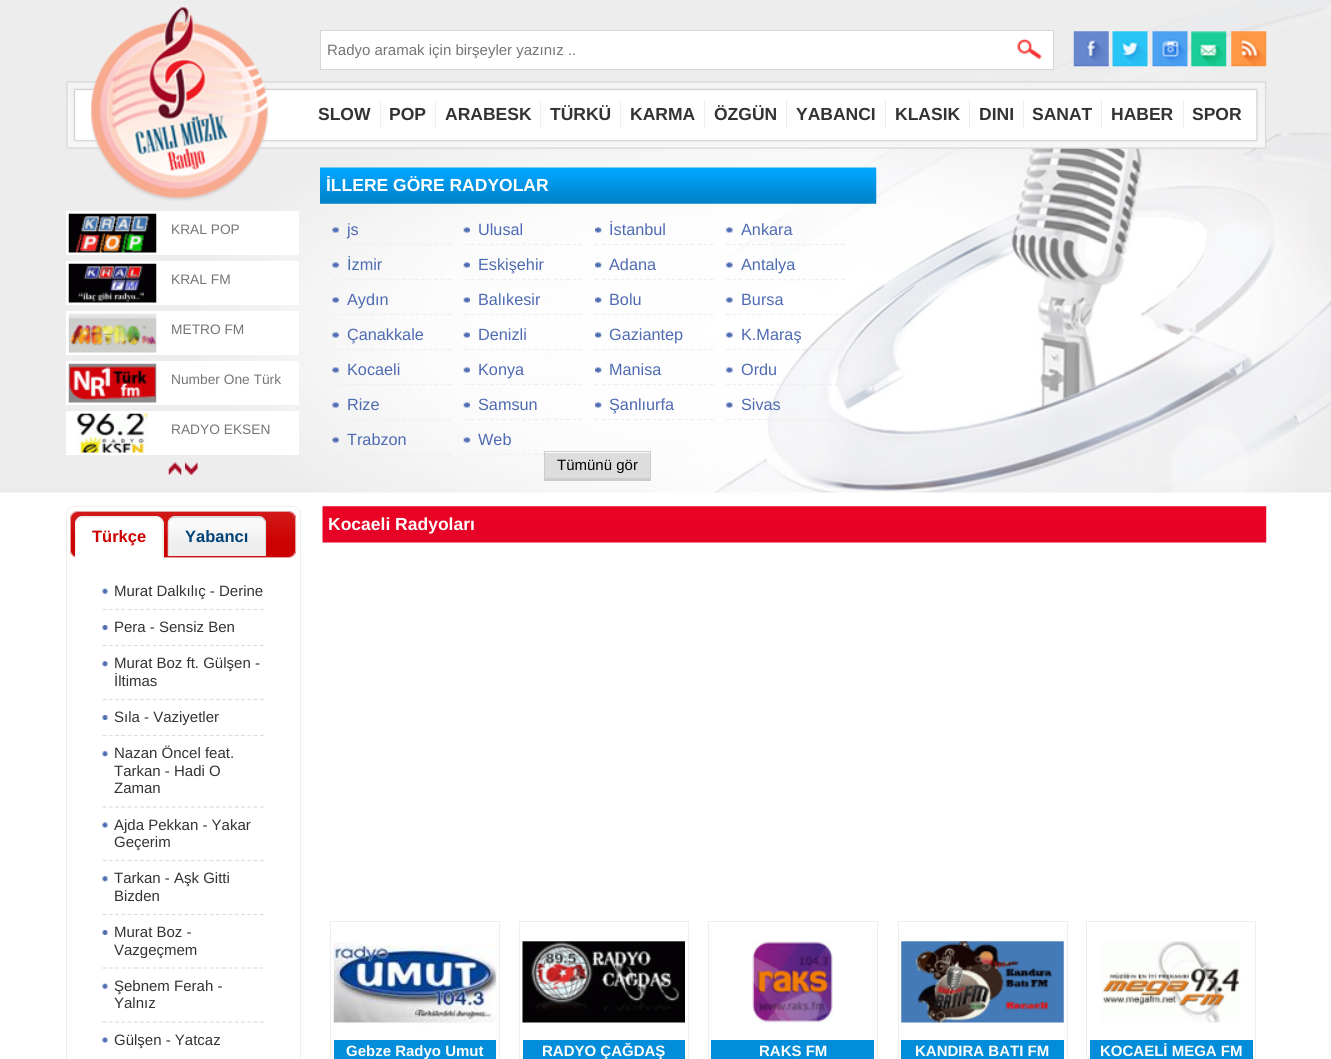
import math
import cairo


def round_path(ctx, x, y, w, h, r):
	ctx.new_sub_path()
	for i, (u, v) in enumerate([(x + w - r, y + h - r), (x + r, y + h - r), (x + r, y + r), (x + w - r, y + r)]):
		ctx.arc(u, v, r, i * math.pi / 2, (i + 1) * math.pi / 2)
	ctx.close_path()

def paste(ctx, path, x, y, w, h):
	ctx.save()
	ctx.set_source_surface(cairo.ImageSurface.create_from_png(path), x, y)
	ctx.rectangle(x, y, w, h)
	ctx.fill()
	ctx.restore()

def draw(ctx):
	ctx.set_source_rgb(1, 1, 1)
	ctx.paint()
	paste(ctx, 'media/1.png', 0, 0, 1331, 493)
	paste(ctx, 'media/9.png', 66, 81, 1201, 68)
	paste(ctx, 'media/2.png', 91, 6, 178, 195)
	ctx.set_source_rgb(1, 1, 1)
	ctx.rectangle(320.5, 30.5, 733, 39)
	ctx.fill_preserve()
	ctx.set_source_rgb(0.839, 0.839, 0.839)
	ctx.set_line_width(1)
	ctx.stroke()
	ctx.select_font_face('Liberation Sans')
	ctx.set_font_size(15)
	ctx.set_source_rgb(0.459, 0.459, 0.459)
	ctx.move_to(327, 55)
	ctx.show_text('Radyo aramak için birşeyler yazınız ..')
	paste(ctx, 'media/3.png', 1017, 38, 25, 21)
	paste(ctx, 'media/4.png', 1073, 31, 36, 36)
	paste(ctx, 'media/5.png', 1112, 31, 36, 36)
	paste(ctx, 'media/6.png', 1152, 31, 36, 36)
	paste(ctx, 'media/7.png', 1191, 31, 36, 36)
	paste(ctx, 'media/8.png', 1231, 31, 36, 36)
	ctx.set_source_rgb(0.933, 0.933, 0.933)
	ctx.rectangle(380, 100, 1, 28)
	ctx.fill()
	ctx.select_font_face('Liberation Sans', cairo.FONT_SLANT_NORMAL, cairo.FONT_WEIGHT_BOLD)
	ctx.set_font_size(17.5)
	ctx.set_source_rgb(0.2, 0.2, 0.2)
	ctx.move_to(318, 120)
	ctx.show_text('SLOW')
	ctx.set_source_rgb(0.933, 0.933, 0.933)
	ctx.rectangle(435, 100, 1, 28)
	ctx.fill()
	ctx.set_source_rgb(0.2, 0.2, 0.2)
	ctx.move_to(389, 120)
	ctx.show_text('POP')
	ctx.set_source_rgb(0.933, 0.933, 0.933)
	ctx.rectangle(540, 100, 1, 28)
	ctx.fill()
	ctx.set_source_rgb(0.2, 0.2, 0.2)
	ctx.move_to(445, 120)
	ctx.show_text('ARABESK')
	ctx.set_source_rgb(0.933, 0.933, 0.933)
	ctx.rectangle(620, 100, 1, 28)
	ctx.fill()
	ctx.set_source_rgb(0.2, 0.2, 0.2)
	ctx.move_to(550, 120)
	ctx.show_text('TÜRKÜ')
	ctx.set_source_rgb(0.933, 0.933, 0.933)
	ctx.rectangle(704, 100, 1, 28)
	ctx.fill()
	ctx.set_source_rgb(0.2, 0.2, 0.2)
	ctx.move_to(630, 120)
	ctx.show_text('KARMA')
	ctx.set_source_rgb(0.933, 0.933, 0.933)
	ctx.rectangle(786, 100, 1, 28)
	ctx.fill()
	ctx.set_source_rgb(0.2, 0.2, 0.2)
	ctx.move_to(714, 120)
	ctx.show_text('ÖZGÜN')
	ctx.set_source_rgb(0.933, 0.933, 0.933)
	ctx.rectangle(885, 100, 1, 28)
	ctx.fill()
	ctx.set_source_rgb(0.2, 0.2, 0.2)
	ctx.move_to(796, 120)
	ctx.show_text('YABANCI')
	ctx.set_source_rgb(0.933, 0.933, 0.933)
	ctx.rectangle(969, 100, 1, 28)
	ctx.fill()
	ctx.set_source_rgb(0.2, 0.2, 0.2)
	ctx.move_to(895, 120)
	ctx.show_text('KLASIK')
	ctx.set_source_rgb(0.933, 0.933, 0.933)
	ctx.rectangle(1023, 100, 1, 28)
	ctx.fill()
	ctx.set_source_rgb(0.2, 0.2, 0.2)
	ctx.move_to(979, 120)
	ctx.show_text('DINI')
	ctx.set_source_rgb(0.933, 0.933, 0.933)
	ctx.rectangle(1101, 100, 1, 28)
	ctx.fill()
	ctx.set_source_rgb(0.2, 0.2, 0.2)
	ctx.move_to(1032, 120)
	ctx.show_text('SANAT')
	ctx.set_source_rgb(0.933, 0.933, 0.933)
	ctx.rectangle(1183, 100, 1, 28)
	ctx.fill()
	ctx.set_source_rgb(0.2, 0.2, 0.2)
	ctx.move_to(1111, 120)
	ctx.show_text('HABER')
	ctx.move_to(1192, 120)
	ctx.show_text('SPOR')
	ctx.set_source_rgb(1, 1, 1)
	ctx.rectangle(66, 211, 233, 44)
	ctx.fill()
	paste(ctx, 'media/10.png', 68, 213, 89, 40)
	ctx.select_font_face('Liberation Sans')
	ctx.set_font_size(13.75)
	ctx.set_source_rgb(0.459, 0.459, 0.459)
	ctx.move_to(171, 234)
	ctx.show_text('KRAL POP')
	ctx.set_source_rgb(1, 1, 1)
	ctx.rectangle(66, 261, 233, 44)
	ctx.fill()
	paste(ctx, 'media/11.png', 68, 263, 89, 40)
	ctx.set_source_rgb(0.459, 0.459, 0.459)
	ctx.move_to(171, 284)
	ctx.show_text('KRAL FM')
	ctx.set_source_rgb(1, 1, 1)
	ctx.rectangle(66, 311, 233, 44)
	ctx.fill()
	paste(ctx, 'media/12.png', 68, 313, 89, 40)
	ctx.set_source_rgb(0.459, 0.459, 0.459)
	ctx.move_to(171, 334)
	ctx.show_text('METRO FM')
	ctx.set_source_rgb(1, 1, 1)
	ctx.rectangle(66, 361, 233, 44)
	ctx.fill()
	paste(ctx, 'media/13.png', 68, 363, 89, 40)
	ctx.set_source_rgb(0.459, 0.459, 0.459)
	ctx.move_to(171, 384)
	ctx.show_text('Number One Türk')
	ctx.set_source_rgb(1, 1, 1)
	ctx.rectangle(66, 411, 233, 44)
	ctx.fill()
	paste(ctx, 'media/14.png', 77, 413, 71, 40)
	ctx.set_source_rgb(0.459, 0.459, 0.459)
	ctx.move_to(171, 434)
	ctx.show_text('RADYO EKSEN')
	paste(ctx, 'media/15.png', 168, 462, 14, 13)
	paste(ctx, 'media/16.png', 185, 462, 13, 13)
	paste(ctx, 'media/17.png', 320, 167, 557, 37)
	ctx.select_font_face('Liberation Sans', cairo.FONT_SLANT_NORMAL, cairo.FONT_WEIGHT_BOLD)
	ctx.set_font_size(17.5)
	ctx.set_source_rgb(1, 1, 1)
	ctx.move_to(326, 191)
	ctx.show_text('İLLERE GÖRE RADYOLAR')
	paste(ctx, 'media/18.png', 332, 227, 7, 6)
	ctx.new_path()
	ctx.move_to(332.5, 244.5)
	ctx.line_to(451, 244.5)
	ctx.set_source_rgb(0.933, 0.933, 0.933)
	ctx.set_line_width(1.2)
	ctx.set_dash([3.75, 2.64])
	ctx.stroke()
	ctx.select_font_face('Liberation Sans')
	ctx.set_font_size(16.25)
	ctx.set_source_rgb(0.302, 0.416, 0.698)
	ctx.move_to(347, 235)
	ctx.show_text('js')
	paste(ctx, 'media/19.png', 463, 227, 7, 6)
	ctx.new_path()
	ctx.move_to(464, 244.5)
	ctx.line_to(582.5, 244.5)
	ctx.set_source_rgb(0.933, 0.933, 0.933)
	ctx.stroke()
	ctx.set_source_rgb(0.302, 0.416, 0.698)
	ctx.move_to(478, 235)
	ctx.show_text('Ulusal')
	paste(ctx, 'media/20.png', 595, 227, 7, 6)
	ctx.new_path()
	ctx.move_to(595, 244.5)
	ctx.line_to(714, 244.5)
	ctx.set_source_rgb(0.933, 0.933, 0.933)
	ctx.stroke()
	ctx.set_source_rgb(0.302, 0.416, 0.698)
	ctx.move_to(609, 235)
	ctx.show_text('İstanbul')
	paste(ctx, 'media/21.png', 726, 227, 7, 6)
	ctx.new_path()
	ctx.move_to(726, 244.5)
	ctx.line_to(845, 244.5)
	ctx.set_source_rgb(0.933, 0.933, 0.933)
	ctx.stroke()
	ctx.set_source_rgb(0.302, 0.416, 0.698)
	ctx.move_to(741, 235)
	ctx.show_text('Ankara')
	paste(ctx, 'media/22.png', 332, 262, 7, 6)
	ctx.new_path()
	ctx.move_to(332.5, 279.5)
	ctx.line_to(451, 279.5)
	ctx.set_source_rgb(0.933, 0.933, 0.933)
	ctx.stroke()
	ctx.set_source_rgb(0.302, 0.416, 0.698)
	ctx.move_to(347, 270)
	ctx.show_text('İzmir')
	paste(ctx, 'media/23.png', 463, 262, 7, 6)
	ctx.new_path()
	ctx.move_to(464, 279.5)
	ctx.line_to(582.5, 279.5)
	ctx.set_source_rgb(0.933, 0.933, 0.933)
	ctx.stroke()
	ctx.set_source_rgb(0.302, 0.416, 0.698)
	ctx.move_to(478, 270)
	ctx.show_text('Eskişehir')
	paste(ctx, 'media/24.png', 595, 262, 7, 6)
	ctx.new_path()
	ctx.move_to(595, 279.5)
	ctx.line_to(714, 279.5)
	ctx.set_source_rgb(0.933, 0.933, 0.933)
	ctx.stroke()
	ctx.set_source_rgb(0.302, 0.416, 0.698)
	ctx.move_to(609, 270)
	ctx.show_text('Adana')
	paste(ctx, 'media/21.png', 726, 262, 7, 6)
	ctx.new_path()
	ctx.move_to(726, 279.5)
	ctx.line_to(845, 279.5)
	ctx.set_source_rgb(0.933, 0.933, 0.933)
	ctx.stroke()
	ctx.set_source_rgb(0.302, 0.416, 0.698)
	ctx.move_to(741, 270)
	ctx.show_text('Antalya')
	paste(ctx, 'media/25.png', 332, 297, 7, 6)
	ctx.new_path()
	ctx.move_to(332.5, 314.5)
	ctx.line_to(451, 314.5)
	ctx.set_source_rgb(0.933, 0.933, 0.933)
	ctx.stroke()
	ctx.set_source_rgb(0.302, 0.416, 0.698)
	ctx.move_to(347, 305)
	ctx.show_text('Aydın')
	paste(ctx, 'media/23.png', 463, 297, 7, 6)
	ctx.new_path()
	ctx.move_to(464, 314.5)
	ctx.line_to(582.5, 314.5)
	ctx.set_source_rgb(0.933, 0.933, 0.933)
	ctx.stroke()
	ctx.set_source_rgb(0.302, 0.416, 0.698)
	ctx.move_to(478, 305)
	ctx.show_text('Balıkesir')
	paste(ctx, 'media/26.png', 595, 297, 7, 6)
	ctx.new_path()
	ctx.move_to(595, 314.5)
	ctx.line_to(714, 314.5)
	ctx.set_source_rgb(0.933, 0.933, 0.933)
	ctx.stroke()
	ctx.set_source_rgb(0.302, 0.416, 0.698)
	ctx.move_to(609, 305)
	ctx.show_text('Bolu')
	paste(ctx, 'media/21.png', 726, 297, 7, 6)
	ctx.new_path()
	ctx.move_to(726, 314.5)
	ctx.line_to(845, 314.5)
	ctx.set_source_rgb(0.933, 0.933, 0.933)
	ctx.stroke()
	ctx.set_source_rgb(0.302, 0.416, 0.698)
	ctx.move_to(741, 305)
	ctx.show_text('Bursa')
	paste(ctx, 'media/27.png', 332, 332, 7, 6)
	ctx.new_path()
	ctx.move_to(332.5, 349.5)
	ctx.line_to(451, 349.5)
	ctx.set_source_rgb(0.933, 0.933, 0.933)
	ctx.stroke()
	ctx.set_source_rgb(0.302, 0.416, 0.698)
	ctx.move_to(347, 340)
	ctx.show_text('Çanakkale')
	paste(ctx, 'media/28.png', 463, 332, 7, 6)
	ctx.new_path()
	ctx.move_to(464, 349.5)
	ctx.line_to(582.5, 349.5)
	ctx.set_source_rgb(0.933, 0.933, 0.933)
	ctx.stroke()
	ctx.set_source_rgb(0.302, 0.416, 0.698)
	ctx.move_to(478, 340)
	ctx.show_text('Denizli')
	paste(ctx, 'media/26.png', 595, 332, 7, 6)
	ctx.new_path()
	ctx.move_to(595, 349.5)
	ctx.line_to(714, 349.5)
	ctx.set_source_rgb(0.933, 0.933, 0.933)
	ctx.stroke()
	ctx.set_source_rgb(0.302, 0.416, 0.698)
	ctx.move_to(609, 340)
	ctx.show_text('Gaziantep')
	paste(ctx, 'media/29.png', 726, 332, 7, 6)
	ctx.new_path()
	ctx.move_to(726, 349.5)
	ctx.line_to(845, 349.5)
	ctx.set_source_rgb(0.933, 0.933, 0.933)
	ctx.stroke()
	ctx.set_source_rgb(0.302, 0.416, 0.698)
	ctx.move_to(741, 340)
	ctx.show_text('K.Maraş')
	paste(ctx, 'media/30.png', 332, 367, 7, 6)
	ctx.new_path()
	ctx.move_to(332.5, 384.5)
	ctx.line_to(451, 384.5)
	ctx.set_source_rgb(0.933, 0.933, 0.933)
	ctx.stroke()
	ctx.set_source_rgb(0.302, 0.416, 0.698)
	ctx.move_to(347, 375)
	ctx.show_text('Kocaeli')
	paste(ctx, 'media/23.png', 463, 367, 7, 6)
	ctx.new_path()
	ctx.move_to(464, 384.5)
	ctx.line_to(582.5, 384.5)
	ctx.set_source_rgb(0.933, 0.933, 0.933)
	ctx.stroke()
	ctx.set_source_rgb(0.302, 0.416, 0.698)
	ctx.move_to(478, 375)
	ctx.show_text('Konya')
	paste(ctx, 'media/26.png', 595, 367, 7, 6)
	ctx.new_path()
	ctx.move_to(595, 384.5)
	ctx.line_to(714, 384.5)
	ctx.set_source_rgb(0.933, 0.933, 0.933)
	ctx.stroke()
	ctx.set_source_rgb(0.302, 0.416, 0.698)
	ctx.move_to(609, 375)
	ctx.show_text('Manisa')
	paste(ctx, 'media/21.png', 726, 367, 7, 6)
	ctx.new_path()
	ctx.move_to(726, 384.5)
	ctx.line_to(845, 384.5)
	ctx.set_source_rgb(0.933, 0.933, 0.933)
	ctx.stroke()
	ctx.set_source_rgb(0.302, 0.416, 0.698)
	ctx.move_to(741, 375)
	ctx.show_text('Ordu')
	paste(ctx, 'media/31.png', 332, 402, 7, 6)
	ctx.new_path()
	ctx.move_to(332.5, 419.5)
	ctx.line_to(451, 419.5)
	ctx.set_source_rgb(0.933, 0.933, 0.933)
	ctx.stroke()
	ctx.set_source_rgb(0.302, 0.416, 0.698)
	ctx.move_to(347, 410)
	ctx.show_text('Rize')
	paste(ctx, 'media/32.png', 463, 402, 7, 6)
	ctx.new_path()
	ctx.move_to(464, 419.5)
	ctx.line_to(582.5, 419.5)
	ctx.set_source_rgb(0.933, 0.933, 0.933)
	ctx.stroke()
	ctx.set_source_rgb(0.302, 0.416, 0.698)
	ctx.move_to(478, 410)
	ctx.show_text('Samsun')
	paste(ctx, 'media/24.png', 595, 402, 7, 6)
	ctx.new_path()
	ctx.move_to(595, 419.5)
	ctx.line_to(714, 419.5)
	ctx.set_source_rgb(0.933, 0.933, 0.933)
	ctx.stroke()
	ctx.set_source_rgb(0.302, 0.416, 0.698)
	ctx.move_to(609, 410)
	ctx.show_text('Şanlıurfa')
	paste(ctx, 'media/21.png', 726, 402, 7, 6)
	ctx.new_path()
	ctx.move_to(726, 419.5)
	ctx.line_to(845, 419.5)
	ctx.set_source_rgb(0.933, 0.933, 0.933)
	ctx.stroke()
	ctx.set_source_rgb(0.302, 0.416, 0.698)
	ctx.move_to(741, 410)
	ctx.show_text('Sivas')
	paste(ctx, 'media/33.png', 332, 437, 7, 6)
	ctx.new_path()
	ctx.move_to(332.5, 454.5)
	ctx.line_to(451, 454.5)
	ctx.set_source_rgb(0.933, 0.933, 0.933)
	ctx.stroke()
	ctx.set_source_rgb(0.302, 0.416, 0.698)
	ctx.move_to(347, 445)
	ctx.show_text('Trabzon')
	paste(ctx, 'media/34.png', 463, 437, 7, 6)
	ctx.new_path()
	ctx.move_to(464, 454.5)
	ctx.line_to(582.5, 454.5)
	ctx.set_source_rgb(0.933, 0.933, 0.933)
	ctx.stroke()
	ctx.set_source_rgb(0.302, 0.416, 0.698)
	ctx.move_to(478, 445)
	ctx.show_text('Web')
	ctx.set_source_rgb(0.867, 0.867, 0.867)
	ctx.rectangle(545, 453, 105, 25)
	ctx.fill()
	ctx.set_source_rgb(0.8, 0.8, 0.8)
	ctx.rectangle(544, 451, 107, 1)
	ctx.rectangle(650, 451, 1, 29)
	ctx.rectangle(544, 478, 107, 3)
	ctx.rectangle(544, 451, 1, 29)
	ctx.fill()
	ctx.set_font_size(15)
	ctx.set_source_rgb(0, 0, 0)
	ctx.move_to(557, 470)
	ctx.show_text('Tümünü gör')
	round_path(ctx, 66.5, 506.5, 234, 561, 7.5)
	ctx.set_source_rgb(0.933, 0.933, 0.933)
	ctx.set_line_width(1)
	ctx.set_dash([])
	ctx.stroke()
	paste(ctx, 'media/35.png', 70, 511, 227, 47)
	round_path(ctx, 70.5, 511.5, 225, 46, 7.5)
	ctx.set_source_rgb(0.89, 0.631, 0.631)
	ctx.stroke()
	ctx.set_source_rgb(1, 1, 1)
	ctx.new_path()
	ctx.move_to(82, 518)
	ctx.line_to(157, 518)
	ctx.curve_to(160.5, 518, 163, 520.5, 163, 524)
	ctx.line_to(163, 558)
	ctx.line_to(76, 558)
	ctx.line_to(76, 524)
	ctx.curve_to(76, 520.5, 78.5, 518, 82, 518)
	ctx.close_path()
	ctx.fill()
	paste(ctx, 'media/36.png', 75, 516, 89, 42)
	ctx.set_source_rgb(0.933, 0.933, 0.933)
	ctx.set_fill_rule(cairo.FILL_RULE_EVEN_ODD)
	ctx.new_path()
	ctx.move_to(82, 516)
	ctx.line_to(156, 516)
	ctx.curve_to(160, 516, 164, 520, 164, 524)
	ctx.line_to(164, 558)
	ctx.line_to(75, 558)
	ctx.line_to(75, 524)
	ctx.curve_to(75, 520, 78, 516, 82, 516)
	ctx.close_path()
	ctx.move_to(82, 518)
	ctx.line_to(156, 518)
	ctx.curve_to(160, 518, 162, 520, 162, 524)
	ctx.line_to(162, 558)
	ctx.line_to(76, 558)
	ctx.line_to(76, 524)
	ctx.curve_to(76, 520, 79, 518, 82, 518)
	ctx.close_path()
	ctx.fill()
	ctx.select_font_face('Liberation Sans', cairo.FONT_SLANT_NORMAL, cairo.FONT_WEIGHT_BOLD)
	ctx.set_font_size(16.5)
	ctx.set_source_rgb(0.8, 0, 0)
	ctx.move_to(92, 542)
	ctx.show_text('Türkçe')
	paste(ctx, 'media/37.png', 167, 516, 100, 41)
	ctx.set_source_rgb(0.847, 0.863, 0.875)
	ctx.new_path()
	ctx.move_to(175, 516)
	ctx.line_to(259, 516)
	ctx.curve_to(263, 516, 266, 520, 266, 524)
	ctx.line_to(266, 556)
	ctx.line_to(168, 556)
	ctx.line_to(168, 524)
	ctx.curve_to(168, 520, 171, 516, 175, 516)
	ctx.close_path()
	ctx.move_to(175, 518)
	ctx.line_to(259, 518)
	ctx.curve_to(262, 518, 265, 520, 265, 524)
	ctx.line_to(265, 556)
	ctx.line_to(169, 556)
	ctx.line_to(169, 524)
	ctx.curve_to(169, 520, 172, 518, 175, 518)
	ctx.close_path()
	ctx.fill()
	ctx.set_source_rgb(0, 0.259, 0.463)
	ctx.move_to(185, 542)
	ctx.show_text('Yabancı')
	paste(ctx, 'media/38.png', 102, 588, 6, 6)
	ctx.new_path()
	ctx.move_to(102.5, 609.5)
	ctx.line_to(264, 609.5)
	ctx.set_source_rgb(0.867, 0.867, 0.867)
	ctx.set_line_width(1.2)
	ctx.set_dash([3.75, 2.55])
	ctx.stroke()
	ctx.select_font_face('Liberation Sans')
	ctx.set_font_size(15)
	ctx.set_source_rgb(0.2, 0.2, 0.2)
	ctx.move_to(114, 596)
	ctx.show_text('Murat Dalkılıç - Derine')
	paste(ctx, 'media/39.png', 102, 625, 6, 5)
	ctx.new_path()
	ctx.move_to(102.5, 645.5)
	ctx.line_to(264, 645.5)
	ctx.set_source_rgb(0.867, 0.867, 0.867)
	ctx.stroke()
	ctx.set_source_rgb(0.2, 0.2, 0.2)
	ctx.move_to(114, 632)
	ctx.show_text('Pera - Sensiz Ben')
	paste(ctx, 'media/40.png', 102, 661, 6, 6)
	ctx.new_path()
	ctx.move_to(102.5, 699.5)
	ctx.line_to(264, 699.5)
	ctx.set_source_rgb(0.867, 0.867, 0.867)
	ctx.stroke()
	ctx.set_source_rgb(0.2, 0.2, 0.2)
	ctx.move_to(114, 668)
	ctx.show_text('Murat Boz ft. Gülşen -')
	ctx.move_to(114, 686)
	ctx.show_text('İltimas')
	paste(ctx, 'media/39.png', 102, 715, 6, 5)
	ctx.new_path()
	ctx.move_to(102.5, 735.5)
	ctx.line_to(264, 735.5)
	ctx.set_source_rgb(0.867, 0.867, 0.867)
	ctx.stroke()
	ctx.set_source_rgb(0.2, 0.2, 0.2)
	ctx.move_to(114, 722)
	ctx.show_text('Sıla - Vaziyetler')
	paste(ctx, 'media/40.png', 102, 751, 6, 6)
	ctx.new_path()
	ctx.move_to(102.5, 807)
	ctx.line_to(264, 807)
	ctx.set_source_rgb(0.867, 0.867, 0.867)
	ctx.stroke()
	ctx.set_source_rgb(0.2, 0.2, 0.2)
	for x, y, s in [
		(114, 758, 'Nazan Öncel feat.'),
		(114, 776, 'Tarkan - Hadi O'),
		(114, 793, 'Zaman'),
	]:
		ctx.move_to(x, y)
		ctx.show_text(s)
	paste(ctx, 'media/41.png', 102, 822, 6, 6)
	ctx.new_path()
	ctx.move_to(102.5, 860.5)
	ctx.line_to(264, 860.5)
	ctx.set_source_rgb(0.867, 0.867, 0.867)
	ctx.stroke()
	ctx.set_source_rgb(0.2, 0.2, 0.2)
	ctx.move_to(114, 830)
	ctx.show_text('Ajda Pekkan - Yakar')
	ctx.move_to(114, 847)
	ctx.show_text('Geçerim')
	paste(ctx, 'media/40.png', 102, 876, 6, 6)
	ctx.new_path()
	ctx.move_to(102.5, 914.5)
	ctx.line_to(264, 914.5)
	ctx.set_source_rgb(0.867, 0.867, 0.867)
	ctx.stroke()
	ctx.set_source_rgb(0.2, 0.2, 0.2)
	ctx.move_to(114, 883)
	ctx.show_text('Tarkan - Aşk Gitti')
	ctx.move_to(114, 901)
	ctx.show_text('Bizden')
	paste(ctx, 'media/39.png', 102, 930, 6, 5)
	ctx.new_path()
	ctx.move_to(102.5, 968)
	ctx.line_to(264, 968)
	ctx.set_source_rgb(0.867, 0.867, 0.867)
	ctx.stroke()
	ctx.set_source_rgb(0.2, 0.2, 0.2)
	ctx.move_to(114, 937)
	ctx.show_text('Murat Boz -')
	ctx.move_to(114, 955)
	ctx.show_text('Vazgeçmem')
	paste(ctx, 'media/38.png', 102, 983, 6, 6)
	ctx.new_path()
	ctx.move_to(102.5, 1022)
	ctx.line_to(264, 1022)
	ctx.set_source_rgb(0.867, 0.867, 0.867)
	ctx.stroke()
	ctx.set_source_rgb(0.2, 0.2, 0.2)
	ctx.move_to(114, 991)
	ctx.show_text('Şebnem Ferah -')
	ctx.move_to(114, 1008)
	ctx.show_text('Yalnız')
	paste(ctx, 'media/41.png', 102, 1037, 6, 6)
	ctx.move_to(114, 1045)
	ctx.show_text('Gülşen - Yatcaz')
	paste(ctx, 'media/42.png', 322, 506, 945, 37)
	ctx.select_font_face('Liberation Sans', cairo.FONT_SLANT_NORMAL, cairo.FONT_WEIGHT_BOLD)
	ctx.set_font_size(17.5)
	ctx.set_source_rgb(1, 1, 1)
	ctx.move_to(328, 530)
	ctx.show_text('Kocaeli Radyoları')
	ctx.rectangle(330.5, 921.5, 169, 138)
	ctx.set_source_rgb(0.933, 0.933, 0.933)
	ctx.set_line_width(1)
	ctx.set_dash([])
	ctx.stroke()
	paste(ctx, 'media/43.png', 333, 942, 164, 83)
	ctx.set_source_rgb(0.004, 0.553, 0.851)
	ctx.rectangle(334, 1040, 162, 19)
	ctx.fill()
	ctx.set_font_size(15)
	ctx.set_source_rgb(1, 1, 1)
	ctx.move_to(346, 1056)
	ctx.show_text('Gebze Radyo Umut')
	ctx.rectangle(519.5, 921.5, 169, 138)
	ctx.set_source_rgb(0.933, 0.933, 0.933)
	ctx.stroke()
	paste(ctx, 'media/44.png', 522, 941, 163, 82)
	ctx.set_source_rgb(0.004, 0.553, 0.851)
	ctx.rectangle(523, 1040, 162, 19)
	ctx.fill()
	ctx.set_source_rgb(1, 1, 1)
	ctx.move_to(542, 1056)
	ctx.show_text('RADYO ÇAĞDAŞ')
	ctx.rectangle(708.5, 921.5, 169, 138)
	ctx.set_source_rgb(0.933, 0.933, 0.933)
	ctx.stroke()
	paste(ctx, 'media/45.png', 752, 941, 81, 82)
	ctx.set_source_rgb(0.004, 0.553, 0.851)
	ctx.rectangle(711, 1040, 163, 19)
	ctx.fill()
	ctx.set_source_rgb(1, 1, 1)
	ctx.move_to(759, 1056)
	ctx.show_text('RAKS FM')
	ctx.rectangle(898.5, 921.5, 169, 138)
	ctx.set_source_rgb(0.933, 0.933, 0.933)
	ctx.stroke()
	paste(ctx, 'media/46.png', 901, 941, 163, 82)
	ctx.set_source_rgb(0.004, 0.553, 0.851)
	ctx.rectangle(901, 1040, 163, 19)
	ctx.fill()
	ctx.set_source_rgb(1, 1, 1)
	ctx.move_to(915, 1056)
	ctx.show_text('KANDIRA BATI FM')
	ctx.rectangle(1086.5, 921.5, 169, 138)
	ctx.set_source_rgb(0.933, 0.933, 0.933)
	ctx.stroke()
	paste(ctx, 'media/47.png', 1102, 941, 139, 82)
	ctx.set_source_rgb(0.004, 0.553, 0.851)
	ctx.rectangle(1090, 1040, 163, 19)
	ctx.fill()
	ctx.set_source_rgb(1, 1, 1)
	ctx.move_to(1100, 1056)
	ctx.show_text('KOCAELİ MEGA FM')


surface = cairo.ImageSurface(cairo.FORMAT_RGB24, 1331, 1059)
ctx = cairo.Context(surface)
options = cairo.FontOptions()
options.set_hint_metrics(cairo.HINT_METRICS_OFF)
options.set_hint_style(cairo.HINT_STYLE_NONE)
ctx.set_font_options(options)
ctx.set_miter_limit(4)
draw(ctx)
surface.write_to_png('image.png')
